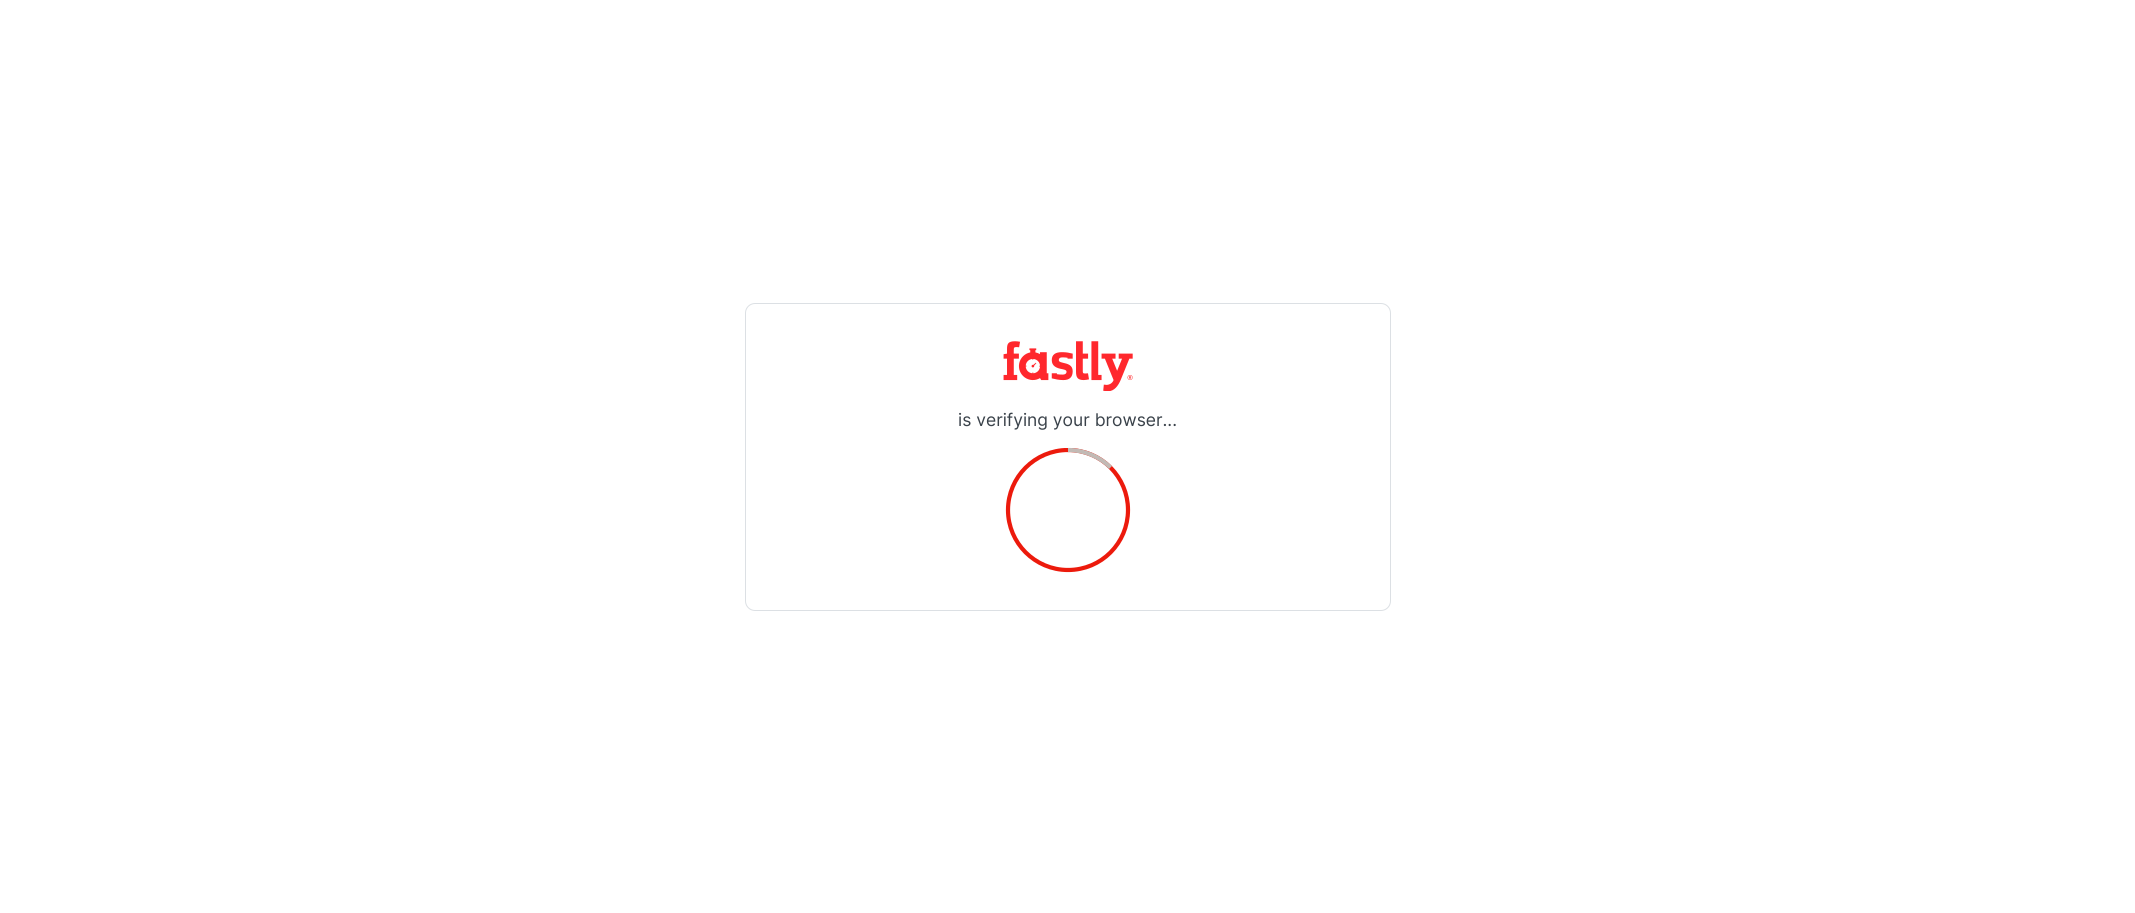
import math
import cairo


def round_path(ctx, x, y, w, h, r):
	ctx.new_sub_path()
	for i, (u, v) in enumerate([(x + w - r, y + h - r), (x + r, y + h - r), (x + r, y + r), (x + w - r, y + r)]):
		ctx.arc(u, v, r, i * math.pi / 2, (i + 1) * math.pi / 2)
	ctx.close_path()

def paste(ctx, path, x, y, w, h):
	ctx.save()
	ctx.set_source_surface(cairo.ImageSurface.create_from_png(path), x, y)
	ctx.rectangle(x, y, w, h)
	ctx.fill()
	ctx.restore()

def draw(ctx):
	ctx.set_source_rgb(1, 1, 1)
	ctx.paint()
	round_path(ctx, 745.5, 303.5, 645, 307, 9.5)
	ctx.set_source_rgb(0.863, 0.878, 0.894)
	ctx.set_line_width(1)
	ctx.stroke()
	paste(ctx, 'media/1.png', 1003, 341, 130, 50)
	ctx.select_font_face('Inter')
	ctx.set_font_size(17.5)
	ctx.set_source_rgb(0.227, 0.259, 0.29)
	ctx.move_to(958, 426)
	ctx.show_text('is verifying your browser...')
	ctx.save()
	ctx.rectangle(784, 448, 569, 125)
	ctx.clip()
	ctx.new_path()
	ctx.move_to(1008, 510)
	ctx.curve_to(1008, 477, 1035, 450, 1068, 450)
	ctx.curve_to(1101.5, 450, 1128, 477, 1128, 510)
	ctx.curve_to(1128, 543, 1101.5, 570, 1068, 570)
	ctx.curve_to(1035, 570, 1008, 543, 1008, 510)
	ctx.close_path()
	ctx.set_source_rgb(0.922, 0.102, 0.047)
	ctx.set_line_width(4.2)
	ctx.stroke()
	ctx.restore()
	ctx.new_path()
	ctx.move_to(1110.5, 467.5)
	ctx.curve_to(1099.5, 456.5, 1084, 450, 1068, 450)
	ctx.set_source_rgb(0.761, 0.729, 0.71)
	ctx.set_line_width(4.2)
	ctx.stroke()


surface = cairo.ImageSurface(cairo.FORMAT_RGB24, 2135, 913)
ctx = cairo.Context(surface)
options = cairo.FontOptions()
options.set_hint_metrics(cairo.HINT_METRICS_OFF)
options.set_hint_style(cairo.HINT_STYLE_NONE)
ctx.set_font_options(options)
ctx.set_miter_limit(4)
draw(ctx)
surface.write_to_png('image.png')
